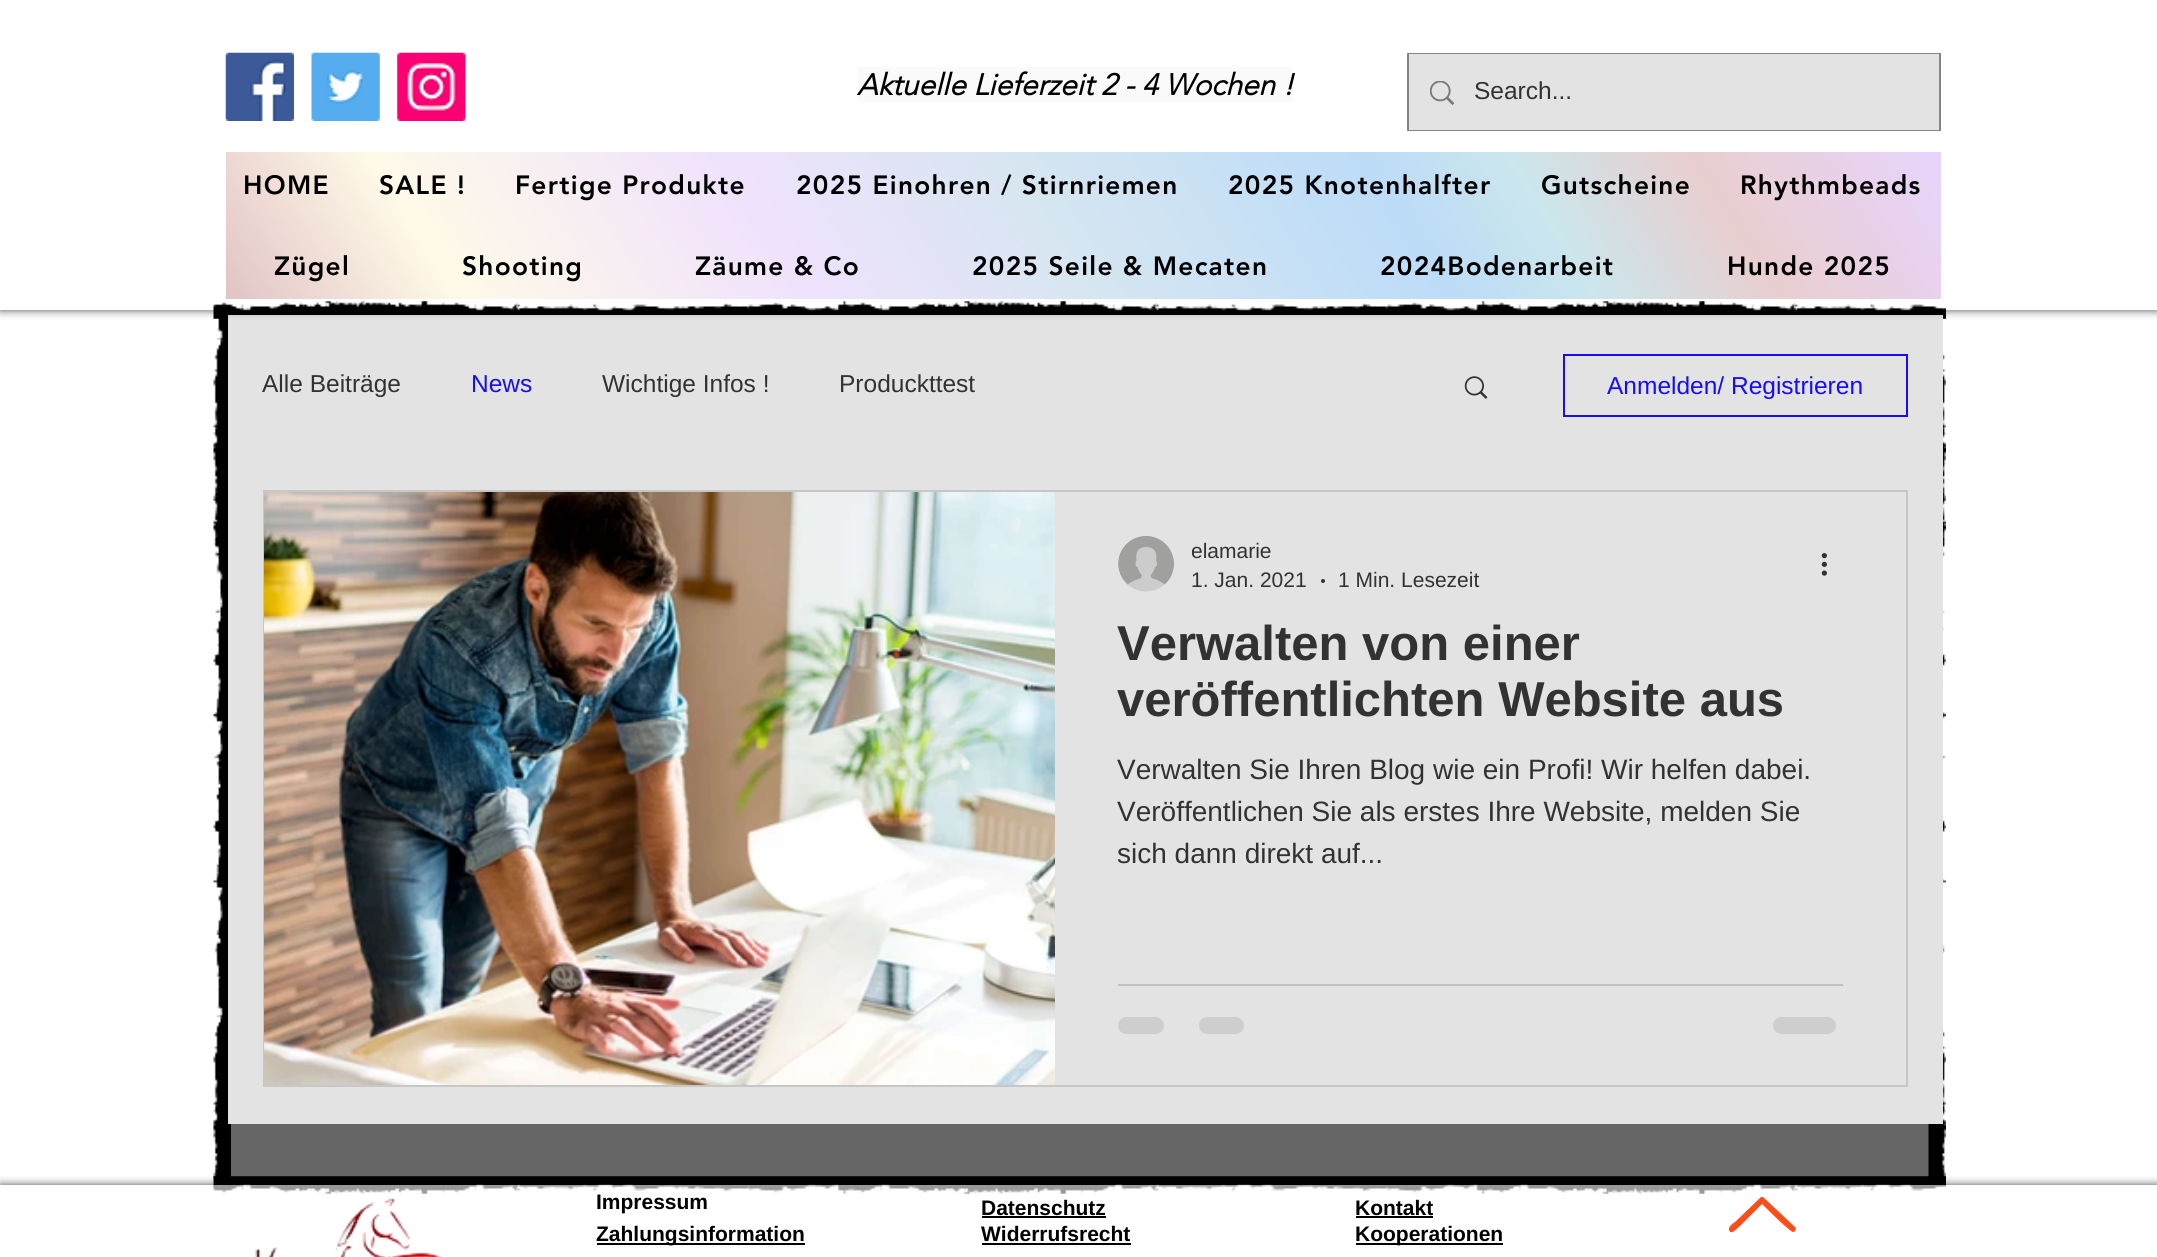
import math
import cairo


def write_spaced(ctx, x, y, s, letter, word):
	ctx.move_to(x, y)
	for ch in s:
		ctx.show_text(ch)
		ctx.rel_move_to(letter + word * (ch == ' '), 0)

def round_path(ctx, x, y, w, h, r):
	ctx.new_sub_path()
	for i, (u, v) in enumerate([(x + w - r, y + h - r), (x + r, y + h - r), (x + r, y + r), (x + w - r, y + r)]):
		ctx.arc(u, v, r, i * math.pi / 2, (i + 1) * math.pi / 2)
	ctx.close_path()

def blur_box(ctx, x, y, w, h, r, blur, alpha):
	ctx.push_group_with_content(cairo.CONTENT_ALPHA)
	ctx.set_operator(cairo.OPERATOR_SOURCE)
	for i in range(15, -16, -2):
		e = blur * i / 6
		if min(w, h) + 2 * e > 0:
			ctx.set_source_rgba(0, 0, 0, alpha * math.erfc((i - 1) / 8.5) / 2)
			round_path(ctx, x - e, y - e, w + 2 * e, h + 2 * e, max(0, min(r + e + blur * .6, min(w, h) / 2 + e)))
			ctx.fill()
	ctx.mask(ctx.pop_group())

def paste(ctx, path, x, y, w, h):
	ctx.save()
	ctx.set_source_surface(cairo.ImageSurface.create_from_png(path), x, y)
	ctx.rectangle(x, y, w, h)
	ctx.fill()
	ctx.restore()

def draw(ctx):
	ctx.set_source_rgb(1, 1, 1)
	ctx.paint()
	paste(ctx, 'media/5.png', 213, 301, 1733, 18)
	ctx.set_source_rgb(0.4, 0.4, 0.4)
	ctx.rectangle(231, 1124, 1698, 53)
	ctx.fill()
	paste(ctx, 'media/6.png', 213, 1176, 1733, 18)
	paste(ctx, 'media/7.png', 213, 318, 18, 861)
	paste(ctx, 'media/8.png', 1928, 353, 18, 824)
	ctx.set_source_rgb(0.89, 0.89, 0.89)
	ctx.rectangle(228, 315, 1715, 809)
	ctx.fill()
	ctx.save()
	ctx.set_fill_rule(cairo.FILL_RULE_EVEN_ODD)
	ctx.new_path()
	ctx.move_to(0, 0)
	ctx.line_to(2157, 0)
	ctx.line_to(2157, 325)
	ctx.line_to(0, 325)
	ctx.close_path()
	ctx.move_to(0, -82)
	ctx.line_to(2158, -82)
	ctx.line_to(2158, 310)
	ctx.line_to(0, 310)
	ctx.close_path()
	ctx.clip()
	ctx.set_source_rgb(0, 0, 0)
	blur_box(ctx, 0, -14, 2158, 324, 0, 4.5, 0.7)
	ctx.restore()
	paste(ctx, 'media/1.png', 225, 52, 69, 69)
	paste(ctx, 'media/2.png', 311, 52, 69, 69)
	paste(ctx, 'media/3.png', 397, 52, 69, 69)
	ctx.set_source_rgb(0.98, 0.98, 0.98)
	ctx.rectangle(858, 67, 435, 35)
	ctx.fill()
	ctx.select_font_face('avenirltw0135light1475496', cairo.FONT_SLANT_ITALIC, cairo.FONT_WEIGHT_BOLD)
	ctx.set_font_size(29.75)
	ctx.set_source_rgb(0, 0, 0)
	ctx.move_to(857, 95)
	ctx.show_text('Aktuelle Lieferzeit 2 - 4 Wochen !')
	ctx.rectangle(1408, 54, 532, 76)
	ctx.set_source_rgb(0.518, 0.518, 0.518)
	ctx.stroke()
	ctx.set_source_rgb(0.89, 0.89, 0.89)
	ctx.rectangle(1409, 54, 530, 76)
	ctx.fill()
	paste(ctx, 'media/4.png', 1430, 81, 24, 24)
	ctx.select_font_face('Liberation Sans')
	ctx.set_font_size(24.5)
	ctx.set_source_rgb(0.196, 0.196, 0.196)
	ctx.move_to(1474, 99)
	ctx.show_text('Search...')
	gradient = cairo.LinearGradient(434, 632, 1733, -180)
	gradient.add_color_stop_rgba(0, 0.882, 0.765, 0.773, 1)
	gradient.add_color_stop_rgba(0.13, 1, 0.98, 0.91, 1)
	gradient.add_color_stop_rgba(0.32, 0.941, 0.886, 0.992, 1)
	gradient.add_color_stop_rgba(0.48, 0.843, 0.902, 0.945, 1)
	gradient.add_color_stop_rgba(0.68, 0.737, 0.863, 0.973, 1)
	gradient.add_color_stop_rgba(0.76, 0.796, 0.902, 0.925, 1)
	gradient.add_color_stop_rgba(0.86, 0.914, 0.808, 0.812, 1)
	gradient.add_color_stop_rgba(0.99, 0.906, 0.831, 0.98, 1)
	ctx.set_source(gradient)
	ctx.rectangle(226, 152, 1715, 147)
	ctx.fill()
	ctx.select_font_face('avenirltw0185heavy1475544 Black')
	ctx.set_font_size(26.25)
	ctx.set_source_rgb(0, 0, 0)
	for x, y, s in [
		(243, 194, 'HOME'),
		(379, 194, 'SALE !'),
		(515, 194, 'Fertige Produkte'),
		(796, 194, '2025 Einohren / Stirnriemen'),
		(1228, 194, '2025 Knotenhalfter'),
		(1541, 194, 'Gutscheine'),
		(1740, 194, 'Rhythmbeads'),
		(274, 275, 'Zügel'),
		(462, 275, 'Shooting'),
		(695, 275, 'Zäume & Co'),
		(972, 275, '2025 Seile & Mecaten'),
		(1380, 275, '2024Bodenarbeit'),
		(1727, 275, 'Hunde 2025'),
	]:
		write_spaced(ctx, x, y, s, 1.3, 0)
	ctx.select_font_face('Liberation Sans')
	ctx.set_font_size(24.5)
	ctx.set_source_rgb(0.196, 0.196, 0.196)
	ctx.move_to(262, 392)
	ctx.show_text('Alle Beiträge')
	ctx.set_source_rgb(0.09, 0.051, 0.949)
	ctx.move_to(471, 392)
	ctx.show_text('News')
	ctx.set_source_rgb(0.196, 0.196, 0.196)
	ctx.move_to(602, 392)
	ctx.show_text('Wichtige Infos !')
	ctx.move_to(839, 392)
	ctx.show_text('Produckttest')
	paste(ctx, 'media/9.png', 1464, 376, 24, 23)
	ctx.rectangle(1564, 355, 343, 61)
	ctx.set_source_rgb(0.09, 0.051, 0.949)
	ctx.stroke()
	ctx.move_to(1607, 394)
	ctx.show_text('Anmelden/ Registrieren')
	ctx.rectangle(264, 491, 1643, 595)
	ctx.set_source_rgb(0.78, 0.78, 0.78)
	ctx.stroke()
	paste(ctx, 'media/10.png', 264, 492, 791, 593)
	paste(ctx, 'media/11.png', 1118, 536, 56, 56)
	ctx.save()
	ctx.rectangle(1192, 539, 80, 25)
	ctx.clip()
	ctx.set_font_size(21)
	ctx.set_source_rgb(0.196, 0.196, 0.196)
	ctx.move_to(1191, 558)
	ctx.show_text('elamarie')
	ctx.restore()
	ctx.set_font_size(21)
	ctx.set_source_rgb(0.196, 0.196, 0.196)
	ctx.move_to(1191, 587)
	ctx.show_text('1. Jan. 2021')
	ctx.new_path()
	ctx.arc(1323, 581, 2, 0, 2 * math.pi)
	ctx.fill()
	ctx.move_to(1338, 587)
	ctx.show_text('1 Min. Lesezeit')
	paste(ctx, 'media/12.png', 1821, 553, 6, 23)
	ctx.select_font_face('Liberation Sans', cairo.FONT_SLANT_NORMAL, cairo.FONT_WEIGHT_BOLD)
	ctx.set_font_size(49)
	ctx.move_to(1117, 660)
	ctx.show_text('Verwalten von einer')
	ctx.move_to(1117, 716)
	ctx.show_text('veröffentlichten Website aus')
	ctx.select_font_face('Liberation Sans')
	ctx.set_font_size(28)
	for x, y, s in [
		(1117, 779, 'Verwalten Sie Ihren Blog wie ein Profi! Wir helfen dabei.'),
		(1117, 821, 'Veröffentlichen Sie als erstes Ihre Website, melden Sie'),
		(1117, 863, 'sich dann direkt auf...'),
	]:
		ctx.move_to(x, y)
		ctx.show_text(s)
	ctx.set_source_rgb(0.753, 0.753, 0.753)
	ctx.rectangle(1118, 984, 725, 2)
	ctx.fill()
	ctx.set_source_rgb(0.808, 0.808, 0.808)
	round_path(ctx, 1118, 1017, 46, 17, 8.5)
	ctx.fill()
	round_path(ctx, 1199, 1017, 45, 17, 8.5)
	ctx.fill()
	round_path(ctx, 1773, 1017, 63, 17, 8.5)
	ctx.fill()
	ctx.save()
	ctx.rectangle(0, 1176, 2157, 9)
	ctx.clip()
	ctx.set_source_rgb(0, 0, 0)
	blur_box(ctx, 0, 1185, 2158, 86, 0, 4.5, 0.7)
	ctx.restore()
	ctx.set_source_rgba(1, 1, 1, 0.6)
	ctx.rectangle(213, 1185, 1733, 9)
	ctx.fill()
	paste(ctx, 'media/13.png', 255, 1198, 187, 59)
	ctx.select_font_face('Liberation Sans', cairo.FONT_SLANT_NORMAL, cairo.FONT_WEIGHT_BOLD)
	ctx.set_font_size(21)
	ctx.set_source_rgb(0, 0, 0)
	ctx.move_to(596, 1209)
	ctx.show_text('Impressum')
	ctx.move_to(981, 1215)
	ctx.show_text('Datenschutz')
	ctx.rectangle(982, 1216, 124, 2)
	ctx.fill()
	ctx.move_to(1355, 1215)
	ctx.show_text('Kontakt')
	ctx.rectangle(1356, 1216, 77, 2)
	ctx.fill()
	ctx.set_source_rgb(0.988, 0.306, 0.102)
	ctx.new_path()
	ctx.move_to(1793, 1232)
	ctx.curve_to(1790, 1232, 1766, 1208, 1762, 1204)
	ctx.line_to(1739, 1227)
	ctx.curve_to(1737, 1228, 1731, 1236, 1729, 1230)
	ctx.curve_to(1728, 1227, 1733, 1223, 1735, 1222)
	ctx.line_to(1761, 1197)
	ctx.line_to(1763, 1197)
	ctx.line_to(1795, 1227)
	ctx.curve_to(1797, 1229, 1795, 1232, 1793, 1232)
	ctx.close_path()
	ctx.fill()
	ctx.set_source_rgb(0, 0, 0)
	ctx.rectangle(597, 1243, 208, 2)
	ctx.fill()
	ctx.move_to(596, 1241)
	ctx.show_text('Zahlungsinformation')
	ctx.move_to(981, 1241)
	ctx.show_text('Widerrufsrecht')
	ctx.rectangle(982, 1243, 149, 2)
	ctx.fill()
	ctx.rectangle(1356, 1243, 147, 2)
	ctx.fill()
	ctx.move_to(1355, 1241)
	ctx.show_text('Kooperationen')


surface = cairo.ImageSurface(cairo.FORMAT_RGB24, 2157, 1257)
ctx = cairo.Context(surface)
options = cairo.FontOptions()
options.set_hint_metrics(cairo.HINT_METRICS_OFF)
options.set_hint_style(cairo.HINT_STYLE_NONE)
ctx.set_font_options(options)
ctx.set_miter_limit(4)
draw(ctx)
surface.write_to_png('image.png')
